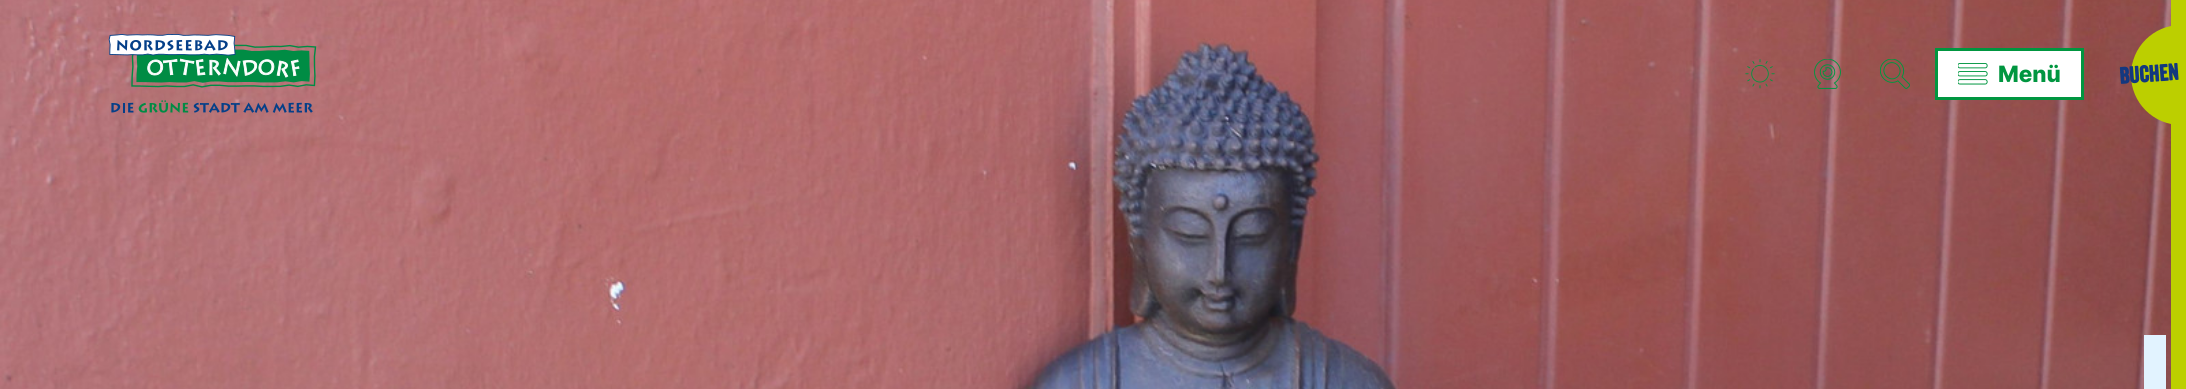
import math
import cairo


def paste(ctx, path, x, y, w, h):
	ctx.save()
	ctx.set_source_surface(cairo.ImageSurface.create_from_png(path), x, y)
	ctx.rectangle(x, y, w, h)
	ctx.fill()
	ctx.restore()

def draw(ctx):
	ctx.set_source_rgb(1, 1, 1)
	ctx.paint()
	paste(ctx, 'media/1.png', 0, 0, 2171, 389)
	ctx.set_source_rgb(0.886, 0.953, 1)
	ctx.rectangle(2144, 335, 22, 54)
	ctx.fill()
	paste(ctx, 'media/2.png', 108, 33, 209, 80)
	paste(ctx, 'media/3.png', 1745, 59, 30, 30)
	paste(ctx, 'media/4.png', 1814, 59, 27, 30)
	paste(ctx, 'media/5.png', 1880, 59, 30, 30)
	ctx.set_source_rgb(1, 1, 1)
	ctx.rectangle(1936.5, 49.5, 146, 49)
	ctx.fill_preserve()
	ctx.set_source_rgb(0, 0.588, 0.251)
	ctx.set_line_width(3)
	ctx.stroke()
	paste(ctx, 'media/6.png', 1958, 63, 30, 22)
	ctx.select_font_face('Inter ExtraBold')
	ctx.set_font_size(22.5)
	ctx.move_to(1998, 82)
	ctx.show_text('Menü')
	ctx.set_source_rgb(0.737, 0.812, 0)
	ctx.rectangle(2171, 0, 15, 389)
	ctx.fill()
	ctx.arc(2181, 75, 48.5, 0, 2 * math.pi)
	ctx.fill_preserve()
	ctx.stroke()
	ctx.select_font_face('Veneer', cairo.FONT_SLANT_NORMAL, cairo.FONT_WEIGHT_BOLD)
	ctx.set_source_rgb(0.078, 0.22, 0.498)
	ctx.save()
	ctx.translate(2120, 84)
	ctx.rotate(-4 * math.pi / 180)
	ctx.move_to(0, 0)
	ctx.show_text('Buchen')
	ctx.restore()


surface = cairo.ImageSurface(cairo.FORMAT_RGB24, 2186, 389)
ctx = cairo.Context(surface)
options = cairo.FontOptions()
options.set_hint_metrics(cairo.HINT_METRICS_OFF)
options.set_hint_style(cairo.HINT_STYLE_NONE)
ctx.set_font_options(options)
ctx.set_miter_limit(4)
draw(ctx)
surface.write_to_png('image.png')
